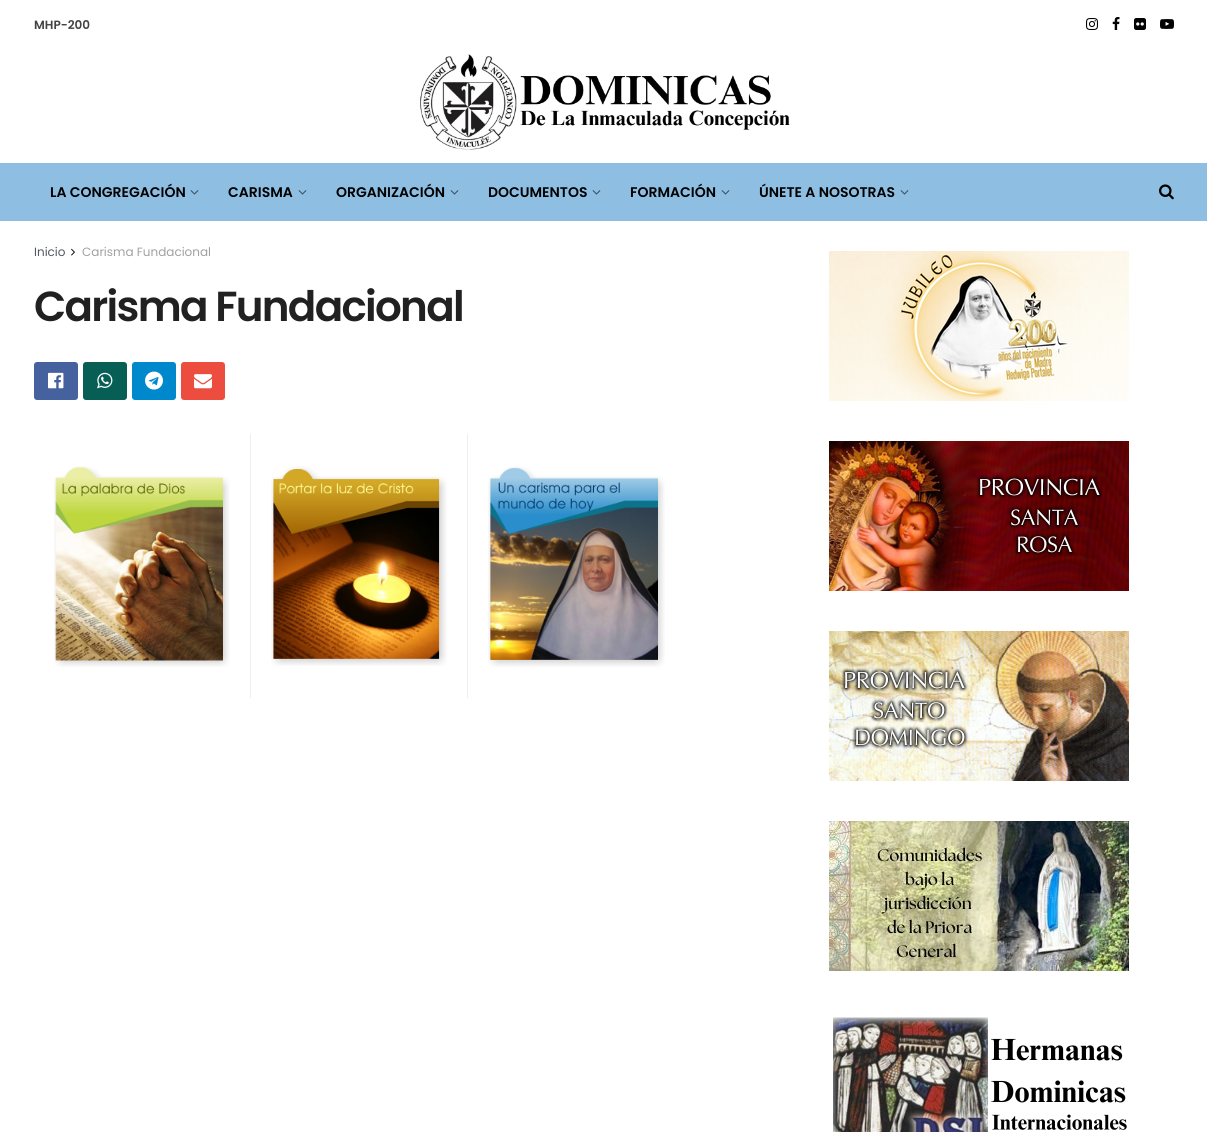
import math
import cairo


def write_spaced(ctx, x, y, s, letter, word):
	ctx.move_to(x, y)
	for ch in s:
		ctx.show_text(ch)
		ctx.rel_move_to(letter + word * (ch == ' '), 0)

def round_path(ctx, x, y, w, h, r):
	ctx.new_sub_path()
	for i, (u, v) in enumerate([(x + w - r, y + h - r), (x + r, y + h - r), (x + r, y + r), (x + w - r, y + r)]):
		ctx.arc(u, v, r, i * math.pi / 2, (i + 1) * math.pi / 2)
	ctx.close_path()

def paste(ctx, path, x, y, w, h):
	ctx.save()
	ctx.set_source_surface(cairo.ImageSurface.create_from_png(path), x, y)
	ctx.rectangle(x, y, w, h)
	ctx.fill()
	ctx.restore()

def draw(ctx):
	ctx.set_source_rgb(1, 1, 1)
	ctx.paint()
	ctx.select_font_face('Poppins SemiBold')
	ctx.set_font_size(12)
	ctx.set_source_rgb(0.259, 0.259, 0.259)
	ctx.move_to(34, 29)
	ctx.show_text('MHP-200')
	paste(ctx, 'media/1.png', 1086, 18, 12, 12)
	paste(ctx, 'media/2.png', 1112, 17, 8, 13)
	paste(ctx, 'media/3.png', 1134, 18, 12, 12)
	paste(ctx, 'media/4.png', 1160, 19, 14, 10)
	paste(ctx, 'media/5.png', 420, 54, 370, 96)
	ctx.set_source_rgb(0.557, 0.749, 0.886)
	ctx.rectangle(0, 163, 1207, 58)
	ctx.fill()
	ctx.set_font_size(14)
	ctx.set_source_rgb(0, 0, 0)
	ctx.move_to(50, 197)
	ctx.show_text('LA CONGREGACIÓN')
	paste(ctx, 'media/6.png', 190, 190, 9, 5)
	ctx.move_to(228, 197)
	ctx.show_text('CARISMA')
	paste(ctx, 'media/6.png', 298, 190, 9, 5)
	ctx.move_to(336, 197)
	ctx.show_text('ORGANIZACIÓN')
	paste(ctx, 'media/6.png', 450, 190, 9, 5)
	ctx.move_to(488, 197)
	ctx.show_text('DOCUMENTOS')
	paste(ctx, 'media/6.png', 592, 190, 9, 5)
	ctx.move_to(630, 197)
	ctx.show_text('FORMACIÓN')
	paste(ctx, 'media/6.png', 721, 190, 9, 5)
	ctx.move_to(759, 197)
	ctx.show_text('ÚNETE A NOSOTRAS')
	paste(ctx, 'media/6.png', 900, 190, 9, 5)
	paste(ctx, 'media/7.png', 1159, 184, 15, 16)
	ctx.select_font_face('Poppins')
	ctx.set_font_size(12)
	ctx.set_source_rgb(0.325, 0.345, 0.361)
	ctx.move_to(34, 256)
	ctx.show_text('Inicio')
	paste(ctx, 'media/8.png', 71, 248, 4, 8)
	ctx.set_source_rgb(0.627, 0.627, 0.627)
	ctx.move_to(82, 256)
	ctx.show_text('Carisma Fundacional')
	ctx.select_font_face('Poppins SemiBold')
	ctx.set_font_size(42)
	ctx.set_source_rgb(0.129, 0.129, 0.129)
	write_spaced(ctx, 34, 321, 'Carisma Fundacional', -1.7, 0)
	ctx.set_source_rgb(0.271, 0.384, 0.624)
	round_path(ctx, 34, 362, 44, 38, 3)
	ctx.fill()
	paste(ctx, 'media/9.png', 48, 372, 16, 17)
	ctx.set_source_rgb(0.027, 0.369, 0.329)
	round_path(ctx, 83, 362, 44, 38, 3)
	ctx.fill()
	paste(ctx, 'media/10.png', 97, 372, 16, 17)
	ctx.set_source_rgb(0, 0.533, 0.8)
	round_path(ctx, 132, 362, 44, 38, 3)
	ctx.fill()
	paste(ctx, 'media/11.png', 145, 371, 18, 19)
	ctx.set_source_rgb(0.922, 0.302, 0.247)
	round_path(ctx, 181, 362, 44, 38, 3)
	ctx.fill()
	paste(ctx, 'media/12.png', 194, 374, 18, 15)
	paste(ctx, 'media/13.png', 54, 466, 176, 201)
	ctx.set_source_rgb(0.933, 0.933, 0.933)
	ctx.rectangle(467, 434, 1, 264)
	ctx.fill()
	ctx.rectangle(250, 434, 1, 264)
	ctx.fill()
	paste(ctx, 'media/14.png', 271, 466, 176, 200)
	paste(ctx, 'media/15.png', 488, 466, 177, 201)
	paste(ctx, 'media/16.png', 829, 251, 300, 150)
	paste(ctx, 'media/17.png', 829, 441, 300, 150)
	paste(ctx, 'media/18.png', 829, 631, 300, 150)
	paste(ctx, 'media/19.png', 829, 821, 300, 150)
	paste(ctx, 'media/20.png', 833, 1017, 294, 115)


surface = cairo.ImageSurface(cairo.FORMAT_RGB24, 1207, 1132)
ctx = cairo.Context(surface)
options = cairo.FontOptions()
options.set_hint_metrics(cairo.HINT_METRICS_OFF)
options.set_hint_style(cairo.HINT_STYLE_NONE)
ctx.set_font_options(options)
ctx.set_miter_limit(4)
draw(ctx)
surface.write_to_png('image.png')
